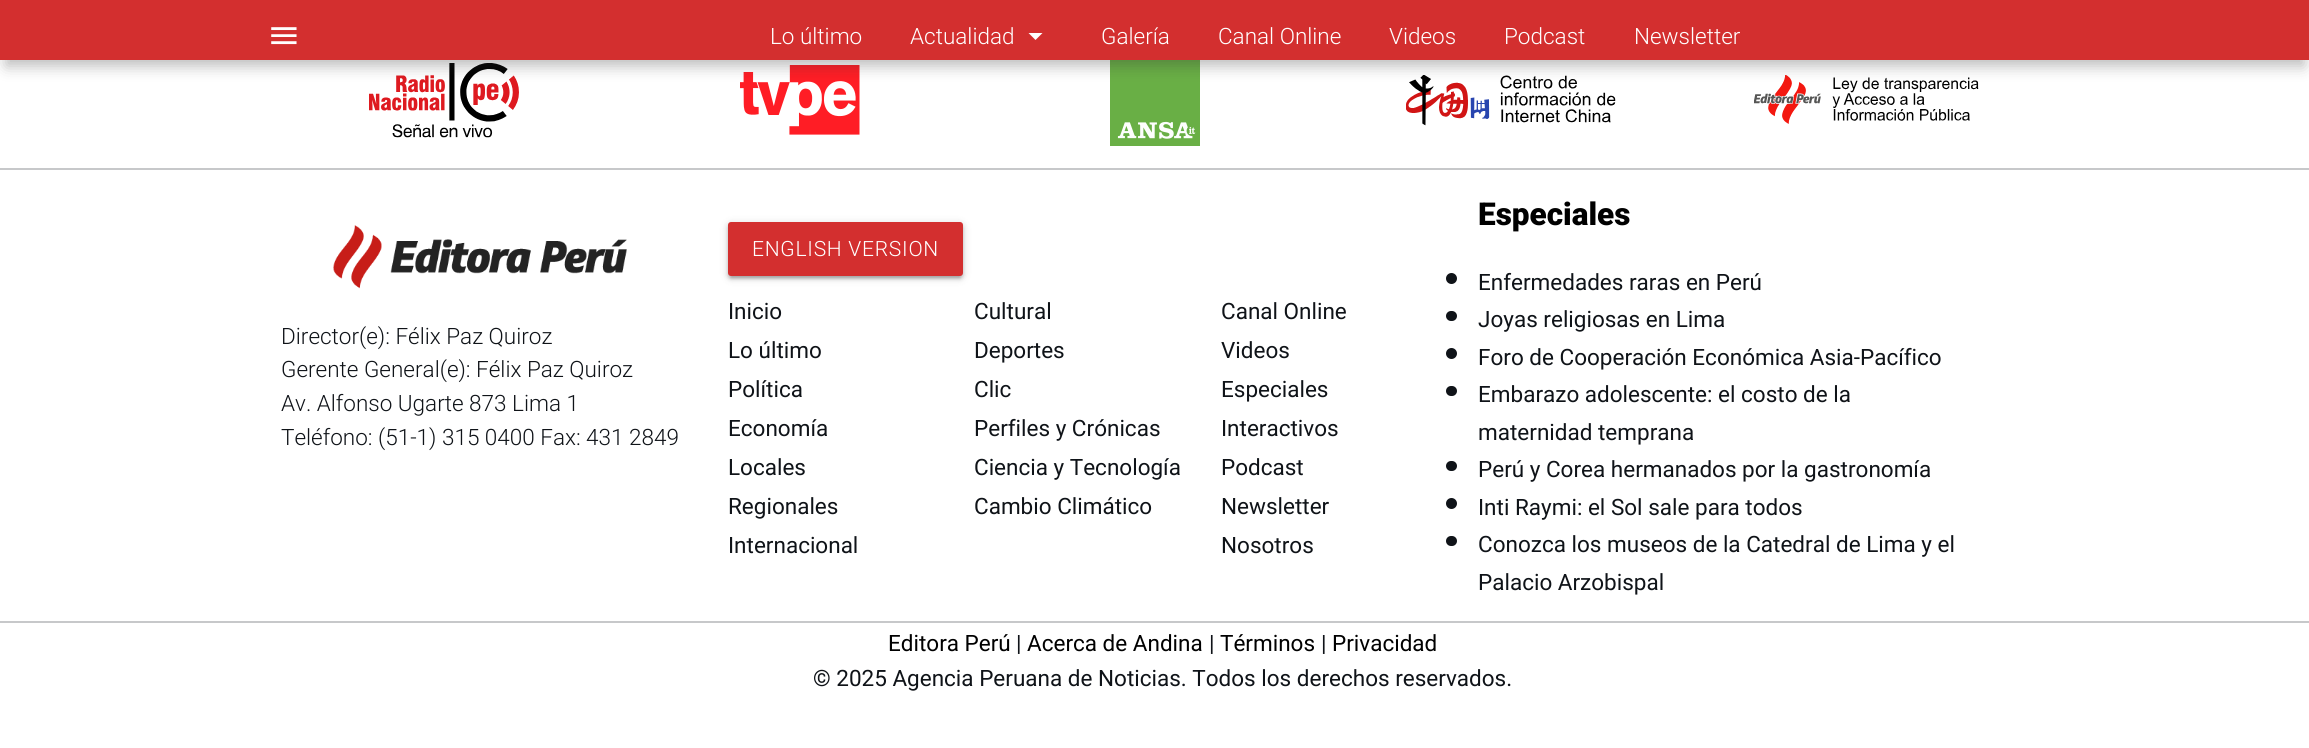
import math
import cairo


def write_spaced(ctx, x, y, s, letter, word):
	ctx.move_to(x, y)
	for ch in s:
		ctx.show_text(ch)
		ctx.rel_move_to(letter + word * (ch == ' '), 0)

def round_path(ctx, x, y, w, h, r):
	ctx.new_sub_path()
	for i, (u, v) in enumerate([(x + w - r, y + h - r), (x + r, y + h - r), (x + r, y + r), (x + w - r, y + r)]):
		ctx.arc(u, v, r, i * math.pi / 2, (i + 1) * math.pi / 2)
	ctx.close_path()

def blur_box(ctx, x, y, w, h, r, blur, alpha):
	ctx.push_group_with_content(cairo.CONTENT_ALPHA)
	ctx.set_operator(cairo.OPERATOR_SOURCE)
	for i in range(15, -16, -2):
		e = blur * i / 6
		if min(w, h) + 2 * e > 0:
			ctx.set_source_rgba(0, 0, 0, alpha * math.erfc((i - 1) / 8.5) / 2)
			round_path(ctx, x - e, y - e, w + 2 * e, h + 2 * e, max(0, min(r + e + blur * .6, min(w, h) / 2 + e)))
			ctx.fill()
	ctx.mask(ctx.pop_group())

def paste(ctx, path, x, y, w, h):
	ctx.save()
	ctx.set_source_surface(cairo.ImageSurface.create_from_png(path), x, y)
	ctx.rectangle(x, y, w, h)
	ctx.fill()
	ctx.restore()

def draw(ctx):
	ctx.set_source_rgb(1, 1, 1)
	ctx.paint()
	paste(ctx, 'media/2.png', 369, 63, 150, 75)
	paste(ctx, 'media/3.png', 740, 65, 120, 70)
	paste(ctx, 'media/4.png', 1110, 60, 90, 86)
	paste(ctx, 'media/5.png', 1406, 75, 210, 51)
	paste(ctx, 'media/6.png', 1754, 75, 225, 49)
	ctx.set_source_rgb(0.196, 0.196, 0.196)
	blur_box(ctx, 6, 18, 2298, 48, 0, 7.5, 0.33)
	ctx.set_source_rgb(0.827, 0.184, 0.184)
	ctx.rectangle(0, 0, 2309, 60)
	ctx.fill()
	paste(ctx, 'media/1.png', 271, 27, 26, 18)
	ctx.select_font_face('Roboto Light')
	ctx.set_font_size(22.5)
	ctx.set_source_rgb(1, 1, 1)
	ctx.move_to(770, 44)
	ctx.show_text('Lo último')
	ctx.move_to(910, 44)
	ctx.show_text('Actualidad')
	ctx.new_path()
	ctx.move_to(1028.5, 33)
	ctx.line_to(1042.5, 33)
	ctx.line_to(1035.5, 40)
	ctx.close_path()
	ctx.fill()
	for x, y, s in [
		(1101, 44, 'Galería'),
		(1218, 44, 'Canal Online'),
		(1389, 44, 'Videos'),
		(1504, 44, 'Podcast'),
		(1634, 44, 'Newsletter'),
	]:
		ctx.move_to(x, y)
		ctx.show_text(s)
	ctx.set_source_rgb(0.78, 0.784, 0.792)
	ctx.rectangle(0, 168, 2309, 2)
	ctx.fill()
	paste(ctx, 'media/7.png', 333, 225, 294, 64)
	ctx.set_source_rgb(0.059, 0.078, 0.094)
	for x, y, s in [
		(281, 344, 'Director(e): Félix Paz Quiroz'),
		(281, 377, 'Gerente General(e): Félix Paz Quiroz'),
		(281, 411, 'Av. Alfonso Ugarte 873 Lima 1'),
		(281, 445, 'Teléfono: (51-1) 315 0400 Fax: 431 2849'),
	]:
		ctx.move_to(x, y)
		ctx.show_text(s)
	ctx.set_source_rgb(0, 0, 0)
	blur_box(ctx, 728, 224, 235, 54, 3, 4, 0.2)
	blur_box(ctx, 731, 230, 229, 48, 0, 1, 0.12)
	blur_box(ctx, 728, 225, 235, 54, 3, 1.5, 0.14)
	ctx.set_source_rgb(0.827, 0.184, 0.184)
	round_path(ctx, 728, 222, 235, 54, 3)
	ctx.fill()
	ctx.set_font_size(21)
	ctx.set_source_rgb(1, 1, 1)
	write_spaced(ctx, 752, 256, 'ENGLISH VERSION', 0.75, 0)
	ctx.select_font_face('Roboto')
	ctx.set_font_size(22.5)
	ctx.set_source_rgb(0.059, 0.078, 0.094)
	for x, y, s in [
		(728, 319, 'Inicio'),
		(728, 358, 'Lo último'),
		(728, 397, 'Política'),
		(728, 436, 'Economía'),
		(728, 475, 'Locales'),
		(728, 514, 'Regionales'),
		(728, 553, 'Internacional'),
		(974, 319, 'Cultural'),
		(974, 358, 'Deportes'),
		(974, 397, 'Clic'),
		(974, 436, 'Perfiles y Crónicas'),
		(974, 475, 'Ciencia y Tecnología'),
		(974, 514, 'Cambio Climático'),
		(1221, 319, 'Canal Online'),
		(1221, 358, 'Videos'),
		(1221, 397, 'Especiales'),
		(1221, 436, 'Interactivos'),
		(1221, 475, 'Podcast'),
		(1221, 514, 'Newsletter'),
		(1221, 553, 'Nosotros'),
	]:
		ctx.move_to(x, y)
		ctx.show_text(s)
	ctx.select_font_face('Roboto Black')
	ctx.set_font_size(31.5)
	ctx.set_source_rgb(0, 0, 0)
	ctx.move_to(1478, 225)
	ctx.show_text('Especiales')
	ctx.set_source_rgb(0.059, 0.078, 0.094)
	ctx.new_path()
	ctx.arc(1451.5, 278.5, 5.5, 0, 2 * math.pi)
	ctx.fill()
	ctx.select_font_face('Roboto')
	ctx.set_font_size(22.5)
	ctx.move_to(1478, 290)
	ctx.show_text('Enfermedades raras en Perú')
	round_path(ctx, 1446, 311, 11, 10, 5)
	ctx.fill()
	ctx.move_to(1478, 327)
	ctx.show_text('Joyas religiosas en Lima')
	ctx.new_path()
	ctx.arc(1451.5, 353.5, 5.5, 0, 2 * math.pi)
	ctx.fill()
	ctx.move_to(1478, 365)
	ctx.show_text('Foro de Cooperación Económica Asia-Pacífico')
	round_path(ctx, 1446, 386, 11, 10, 5)
	ctx.fill()
	ctx.move_to(1478, 402)
	ctx.show_text('Embarazo adolescente: el costo de la')
	ctx.move_to(1478, 440)
	ctx.show_text('maternidad temprana')
	round_path(ctx, 1446, 461, 11, 10, 5)
	ctx.fill()
	ctx.move_to(1478, 477)
	ctx.show_text('Perú y Corea hermanados por la gastronomía')
	ctx.new_path()
	ctx.arc(1451.5, 503.5, 5.5, 0, 2 * math.pi)
	ctx.fill()
	ctx.move_to(1478, 515)
	ctx.show_text('Inti Raymi: el Sol sale para todos')
	round_path(ctx, 1446, 536, 11, 10, 5)
	ctx.fill()
	ctx.move_to(1478, 552)
	ctx.show_text('Conozca los museos de la Catedral de Lima y el')
	ctx.move_to(1478, 590)
	ctx.show_text('Palacio Arzobispal')
	ctx.set_source_rgb(0.78, 0.784, 0.792)
	ctx.rectangle(0, 621, 2309, 2)
	ctx.fill()
	ctx.set_source_rgb(0, 0, 0)
	ctx.move_to(888, 651)
	ctx.show_text('Editora Perú')
	ctx.set_source_rgb(0.059, 0.078, 0.094)
	ctx.move_to(1016, 651)
	ctx.show_text('|')
	ctx.set_source_rgb(0, 0, 0)
	ctx.move_to(1027, 651)
	ctx.show_text('Acerca de Andina')
	ctx.set_source_rgb(0.059, 0.078, 0.094)
	ctx.move_to(1209, 651)
	ctx.show_text('|')
	ctx.set_source_rgb(0, 0, 0)
	ctx.move_to(1220, 651)
	ctx.show_text('Términos')
	ctx.set_source_rgb(0.059, 0.078, 0.094)
	ctx.move_to(1321, 651)
	ctx.show_text('|')
	ctx.set_source_rgb(0, 0, 0)
	ctx.move_to(1332, 651)
	ctx.show_text('Privacidad')
	ctx.set_source_rgb(0.059, 0.078, 0.094)
	ctx.move_to(813, 686)
	ctx.show_text('© 2025 Agencia Peruana de Noticias. Todos los derechos reservados.')


surface = cairo.ImageSurface(cairo.FORMAT_RGB24, 2309, 748)
ctx = cairo.Context(surface)
options = cairo.FontOptions()
options.set_hint_metrics(cairo.HINT_METRICS_OFF)
options.set_hint_style(cairo.HINT_STYLE_NONE)
ctx.set_font_options(options)
ctx.set_miter_limit(4)
draw(ctx)
surface.write_to_png('image.png')
